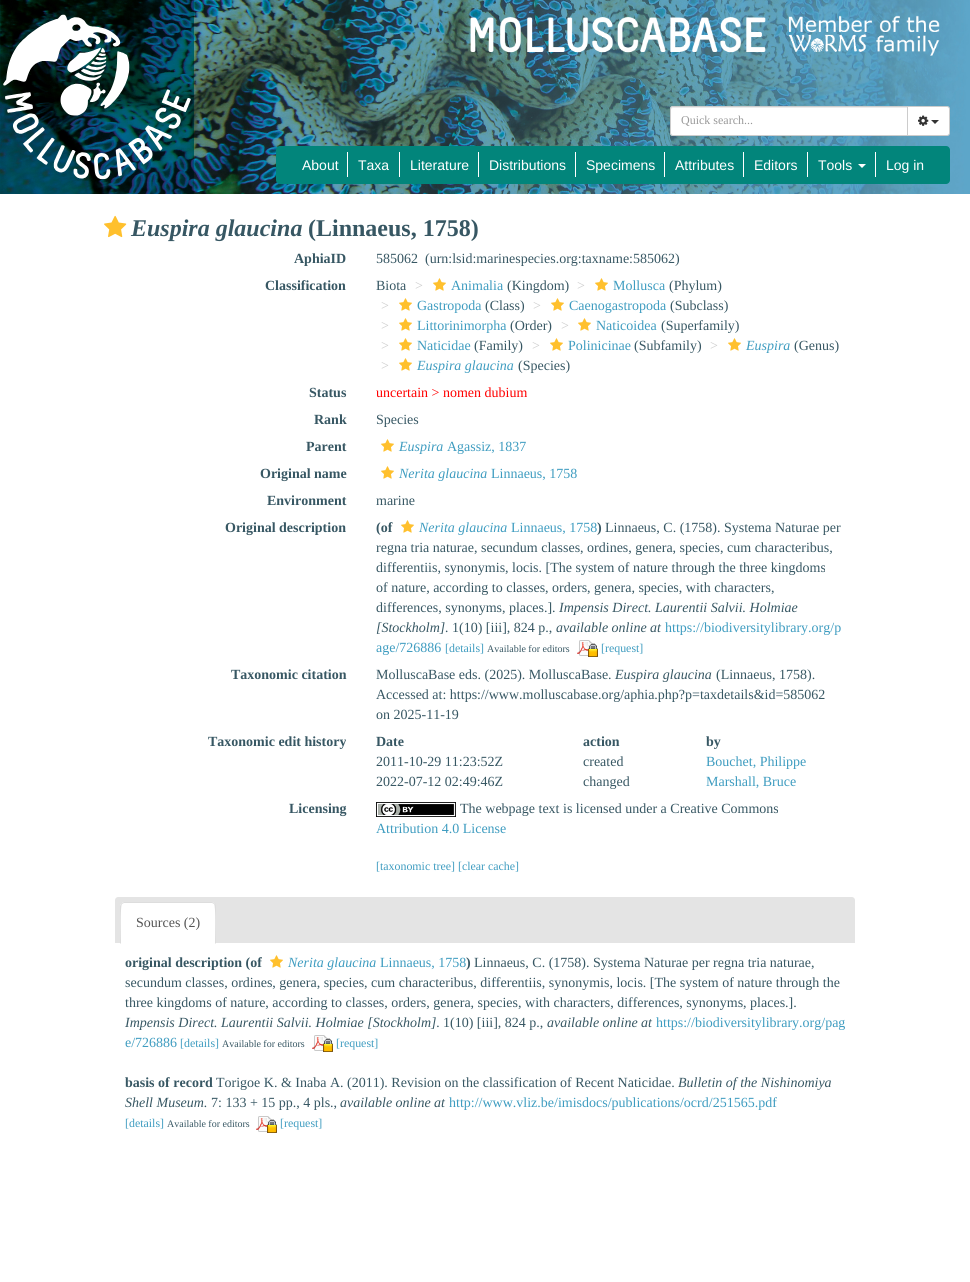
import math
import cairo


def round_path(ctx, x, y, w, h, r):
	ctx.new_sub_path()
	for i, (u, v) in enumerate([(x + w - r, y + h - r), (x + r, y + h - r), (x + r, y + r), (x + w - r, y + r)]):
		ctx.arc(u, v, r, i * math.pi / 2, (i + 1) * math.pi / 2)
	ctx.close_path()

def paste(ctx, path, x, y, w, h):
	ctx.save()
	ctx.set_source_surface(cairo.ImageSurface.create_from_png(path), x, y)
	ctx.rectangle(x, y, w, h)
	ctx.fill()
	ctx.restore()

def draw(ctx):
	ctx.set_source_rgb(1, 1, 1)
	ctx.paint()
	paste(ctx, 'media/1.png', 0, 0, 970, 194)
	paste(ctx, 'media/2.png', 3, 14, 188, 166)
	paste(ctx, 'media/3.png', 470, 15, 470, 41)
	ctx.set_source_rgb(1, 1, 1)
	ctx.new_path()
	ctx.move_to(673, 106)
	ctx.line_to(908, 106)
	ctx.line_to(908, 136)
	ctx.line_to(673, 136)
	ctx.curve_to(671.5, 136, 670, 134.5, 670, 133)
	ctx.line_to(670, 109)
	ctx.curve_to(670, 107.5, 671.5, 106, 673, 106)
	ctx.close_path()
	ctx.fill()
	ctx.set_source_rgb(0.925, 0.925, 0.925)
	ctx.new_path()
	ctx.move_to(673, 108)
	ctx.line_to(907, 108)
	ctx.line_to(907, 107)
	ctx.line_to(673, 107)
	ctx.curve_to(672, 107, 671, 108, 671, 109)
	ctx.line_to(671, 110)
	ctx.curve_to(671, 109, 672, 108, 673, 108)
	ctx.close_path()
	ctx.fill()
	ctx.new_path()
	ctx.move_to(673, 106.5)
	ctx.line_to(907.5, 106.5)
	ctx.line_to(907.5, 135.5)
	ctx.line_to(673, 135.5)
	ctx.curve_to(671.5, 135.5, 670.5, 134.5, 670.5, 133)
	ctx.line_to(670.5, 109)
	ctx.curve_to(670.5, 107.5, 671.5, 106.5, 673, 106.5)
	ctx.close_path()
	ctx.set_source_rgb(0.8, 0.8, 0.8)
	ctx.set_line_width(1)
	ctx.stroke()
	ctx.select_font_face('Liberation Serif')
	ctx.set_font_size(12)
	ctx.set_source_rgb(0.6, 0.6, 0.6)
	ctx.move_to(681, 124)
	ctx.show_text('Quick search...')
	ctx.set_source_rgb(1, 1, 1)
	ctx.new_path()
	ctx.move_to(907.5, 106.5)
	ctx.line_to(947, 106.5)
	ctx.curve_to(948.5, 106.5, 949.5, 107.5, 949.5, 109)
	ctx.line_to(949.5, 133)
	ctx.curve_to(949.5, 134.5, 948.5, 135.5, 947, 135.5)
	ctx.line_to(907.5, 135.5)
	ctx.close_path()
	ctx.fill_preserve()
	ctx.set_source_rgb(0.8, 0.8, 0.8)
	ctx.stroke()
	paste(ctx, 'media/4.png', 918, 115, 11, 11)
	ctx.set_source_rgb(0.2, 0.2, 0.2)
	ctx.new_path()
	ctx.move_to(931, 120)
	ctx.line_to(939, 120)
	ctx.line_to(935, 124)
	ctx.close_path()
	ctx.fill()
	ctx.set_source_rgb(0.008, 0.522, 0.482)
	round_path(ctx, 276, 146, 674, 38, 4)
	ctx.fill()
	ctx.select_font_face('Liberation Sans')
	ctx.set_font_size(14)
	ctx.set_source_rgb(1, 1, 1)
	ctx.move_to(302, 170)
	ctx.show_text('About')
	ctx.rectangle(347, 152, 1, 25)
	ctx.fill()
	ctx.move_to(358, 170)
	ctx.show_text('Taxa')
	ctx.rectangle(399, 152, 1, 25)
	ctx.fill()
	ctx.move_to(410, 170)
	ctx.show_text('Literature')
	ctx.rectangle(478, 152, 1, 25)
	ctx.fill()
	ctx.move_to(489, 170)
	ctx.show_text('Distributions')
	ctx.rectangle(575, 152, 1, 25)
	ctx.fill()
	ctx.move_to(586, 170)
	ctx.show_text('Specimens')
	ctx.rectangle(664, 152, 1, 25)
	ctx.fill()
	ctx.move_to(675, 170)
	ctx.show_text('Attributes')
	ctx.rectangle(743, 152, 1, 25)
	ctx.fill()
	ctx.move_to(754, 170)
	ctx.show_text('Editors')
	ctx.rectangle(807, 152, 1, 25)
	ctx.fill()
	ctx.move_to(818, 170)
	ctx.show_text('Tools')
	ctx.new_path()
	ctx.move_to(858, 164)
	ctx.line_to(866, 164)
	ctx.line_to(862, 168)
	ctx.close_path()
	ctx.fill()
	ctx.rectangle(875, 152, 1, 25)
	ctx.fill()
	ctx.move_to(886, 170)
	ctx.show_text('Log in')
	paste(ctx, 'media/5.png', 104, 215, 23, 23)
	ctx.select_font_face('Liberation Serif', cairo.FONT_SLANT_ITALIC, cairo.FONT_WEIGHT_BOLD)
	ctx.set_font_size(24)
	ctx.set_source_rgb(0.216, 0.341, 0.388)
	ctx.move_to(131, 236)
	ctx.show_text('Euspira glaucina')
	ctx.select_font_face('Liberation Serif', cairo.FONT_SLANT_NORMAL, cairo.FONT_WEIGHT_BOLD)
	ctx.move_to(308, 236)
	ctx.show_text('(Linnaeus, 1758)')
	ctx.set_font_size(14)
	ctx.move_to(294, 263)
	ctx.show_text('AphiaID')
	ctx.select_font_face('Liberation Serif')
	ctx.move_to(376, 263)
	ctx.show_text('585062')
	ctx.move_to(425, 263)
	ctx.show_text('(urn:lsid:marinespecies.org:taxname:585062)')
	ctx.select_font_face('Liberation Serif', cairo.FONT_SLANT_NORMAL, cairo.FONT_WEIGHT_BOLD)
	ctx.move_to(265, 290)
	ctx.show_text('Classification')
	ctx.select_font_face('Liberation Serif')
	ctx.move_to(376, 290)
	ctx.show_text('Biota')
	ctx.set_source_rgb(0.8, 0.8, 0.8)
	ctx.move_to(415, 290)
	ctx.show_text('>')
	paste(ctx, 'media/6.png', 433, 278, 13, 13)
	ctx.set_source_rgb(0.243, 0.612, 0.753)
	ctx.move_to(451, 290)
	ctx.show_text('Animalia')
	ctx.set_source_rgb(0.216, 0.341, 0.388)
	ctx.move_to(507, 290)
	ctx.show_text('(Kingdom)')
	ctx.set_source_rgb(0.8, 0.8, 0.8)
	ctx.move_to(577, 290)
	ctx.show_text('>')
	paste(ctx, 'media/6.png', 595, 278, 13, 13)
	ctx.set_source_rgb(0.243, 0.612, 0.753)
	ctx.move_to(613, 290)
	ctx.show_text('Mollusca')
	ctx.set_source_rgb(0.216, 0.341, 0.388)
	ctx.move_to(669, 290)
	ctx.show_text('(Phylum)')
	ctx.set_source_rgb(0.8, 0.8, 0.8)
	ctx.move_to(381, 310)
	ctx.show_text('>')
	paste(ctx, 'media/6.png', 399, 298, 13, 13)
	ctx.set_source_rgb(0.243, 0.612, 0.753)
	ctx.move_to(417, 310)
	ctx.show_text('Gastropoda')
	ctx.set_source_rgb(0.216, 0.341, 0.388)
	ctx.move_to(485, 310)
	ctx.show_text('(Class)')
	ctx.set_source_rgb(0.8, 0.8, 0.8)
	ctx.move_to(533, 310)
	ctx.show_text('>')
	paste(ctx, 'media/6.png', 551, 298, 13, 13)
	ctx.set_source_rgb(0.243, 0.612, 0.753)
	ctx.move_to(569, 310)
	ctx.show_text('Caenogastropoda')
	ctx.set_source_rgb(0.216, 0.341, 0.388)
	ctx.move_to(670, 310)
	ctx.show_text('(Subclass)')
	ctx.set_source_rgb(0.8, 0.8, 0.8)
	ctx.move_to(381, 330)
	ctx.show_text('>')
	paste(ctx, 'media/6.png', 399, 318, 13, 13)
	ctx.set_source_rgb(0.243, 0.612, 0.753)
	ctx.move_to(417, 330)
	ctx.show_text('Littorinimorpha')
	ctx.set_source_rgb(0.216, 0.341, 0.388)
	ctx.move_to(510, 330)
	ctx.show_text('(Order)')
	ctx.set_source_rgb(0.8, 0.8, 0.8)
	ctx.move_to(561, 330)
	ctx.show_text('>')
	paste(ctx, 'media/6.png', 578, 318, 13, 13)
	ctx.set_source_rgb(0.243, 0.612, 0.753)
	ctx.move_to(596, 330)
	ctx.show_text('Naticoidea')
	ctx.set_source_rgb(0.216, 0.341, 0.388)
	ctx.move_to(661, 330)
	ctx.show_text('(Superfamily)')
	ctx.set_source_rgb(0.8, 0.8, 0.8)
	ctx.move_to(381, 350)
	ctx.show_text('>')
	paste(ctx, 'media/6.png', 399, 338, 13, 13)
	ctx.set_source_rgb(0.243, 0.612, 0.753)
	ctx.move_to(417, 350)
	ctx.show_text('Naticidae')
	ctx.set_source_rgb(0.216, 0.341, 0.388)
	ctx.move_to(474, 350)
	ctx.show_text('(Family)')
	ctx.set_source_rgb(0.8, 0.8, 0.8)
	ctx.move_to(532, 350)
	ctx.show_text('>')
	paste(ctx, 'media/6.png', 550, 338, 13, 13)
	ctx.set_source_rgb(0.243, 0.612, 0.753)
	ctx.move_to(568, 350)
	ctx.show_text('Polinicinae')
	ctx.set_source_rgb(0.216, 0.341, 0.388)
	ctx.move_to(634, 350)
	ctx.show_text('(Subfamily)')
	ctx.set_source_rgb(0.8, 0.8, 0.8)
	ctx.move_to(710, 350)
	ctx.show_text('>')
	paste(ctx, 'media/6.png', 728, 338, 13, 13)
	ctx.select_font_face('Liberation Serif', cairo.FONT_SLANT_ITALIC)
	ctx.set_source_rgb(0.243, 0.612, 0.753)
	ctx.move_to(746, 350)
	ctx.show_text('Euspira')
	ctx.select_font_face('Liberation Serif')
	ctx.set_source_rgb(0.216, 0.341, 0.388)
	ctx.move_to(794, 350)
	ctx.show_text('(Genus)')
	ctx.set_source_rgb(0.8, 0.8, 0.8)
	ctx.move_to(381, 370)
	ctx.show_text('>')
	paste(ctx, 'media/6.png', 399, 358, 13, 13)
	ctx.select_font_face('Liberation Serif', cairo.FONT_SLANT_ITALIC)
	ctx.set_source_rgb(0.243, 0.612, 0.753)
	ctx.move_to(417, 370)
	ctx.show_text('Euspira glaucina')
	ctx.select_font_face('Liberation Serif')
	ctx.set_source_rgb(0.216, 0.341, 0.388)
	ctx.move_to(518, 370)
	ctx.show_text('(Species)')
	ctx.select_font_face('Liberation Serif', cairo.FONT_SLANT_NORMAL, cairo.FONT_WEIGHT_BOLD)
	ctx.move_to(309, 397)
	ctx.show_text('Status')
	ctx.select_font_face('Liberation Serif')
	ctx.set_source_rgb(1, 0, 0)
	ctx.move_to(376, 397)
	ctx.show_text('uncertain > nomen dubium')
	ctx.select_font_face('Liberation Serif', cairo.FONT_SLANT_NORMAL, cairo.FONT_WEIGHT_BOLD)
	ctx.set_source_rgb(0.216, 0.341, 0.388)
	ctx.move_to(314, 424)
	ctx.show_text('Rank')
	ctx.select_font_face('Liberation Serif')
	ctx.move_to(376, 424)
	ctx.show_text('Species')
	ctx.select_font_face('Liberation Serif', cairo.FONT_SLANT_NORMAL, cairo.FONT_WEIGHT_BOLD)
	ctx.move_to(306, 451)
	ctx.show_text('Parent')
	paste(ctx, 'media/6.png', 381, 439, 13, 13)
	ctx.select_font_face('Liberation Serif', cairo.FONT_SLANT_ITALIC)
	ctx.set_source_rgb(0.243, 0.612, 0.753)
	ctx.move_to(399, 451)
	ctx.show_text('Euspira')
	ctx.select_font_face('Liberation Serif')
	ctx.move_to(447, 451)
	ctx.show_text('Agassiz, 1837')
	ctx.select_font_face('Liberation Serif', cairo.FONT_SLANT_NORMAL, cairo.FONT_WEIGHT_BOLD)
	ctx.set_source_rgb(0.216, 0.341, 0.388)
	ctx.move_to(260, 478)
	ctx.show_text('Original name')
	paste(ctx, 'media/6.png', 381, 466, 13, 13)
	ctx.select_font_face('Liberation Serif', cairo.FONT_SLANT_ITALIC)
	ctx.set_source_rgb(0.243, 0.612, 0.753)
	ctx.move_to(399, 478)
	ctx.show_text('Nerita glaucina')
	ctx.select_font_face('Liberation Serif')
	ctx.move_to(491, 478)
	ctx.show_text('Linnaeus, 1758')
	ctx.select_font_face('Liberation Serif', cairo.FONT_SLANT_NORMAL, cairo.FONT_WEIGHT_BOLD)
	ctx.set_source_rgb(0.216, 0.341, 0.388)
	ctx.move_to(267, 505)
	ctx.show_text('Environment')
	ctx.select_font_face('Liberation Serif')
	ctx.move_to(376, 505)
	ctx.show_text('marine')
	ctx.select_font_face('Liberation Serif', cairo.FONT_SLANT_NORMAL, cairo.FONT_WEIGHT_BOLD)
	ctx.move_to(225, 532)
	ctx.show_text('Original description')
	ctx.move_to(376, 532)
	ctx.show_text('(of')
	paste(ctx, 'media/6.png', 401, 520, 13, 13)
	ctx.select_font_face('Liberation Serif', cairo.FONT_SLANT_ITALIC)
	ctx.set_source_rgb(0.243, 0.612, 0.753)
	ctx.move_to(419, 532)
	ctx.show_text('Nerita glaucina')
	ctx.select_font_face('Liberation Serif')
	ctx.move_to(511, 532)
	ctx.show_text('Linnaeus, 1758')
	ctx.select_font_face('Liberation Serif', cairo.FONT_SLANT_NORMAL, cairo.FONT_WEIGHT_BOLD)
	ctx.set_source_rgb(0.216, 0.341, 0.388)
	ctx.move_to(597, 532)
	ctx.show_text(')')
	ctx.select_font_face('Liberation Serif')
	for x, y, s in [
		(605, 532, 'Linnaeus, C. (1758). Systema Naturae per'),
		(376, 552, 'regna tria naturae, secundum classes, ordines, genera, species, cum characteribus,'),
		(376, 572, 'differentiis, synonymis, locis. [The system of nature through the three kingdoms'),
		(376, 592, 'of nature, according to classes, orders, genera, species, with characters,'),
		(376, 612, 'differences, synonyms, places.].'),
	]:
		ctx.move_to(x, y)
		ctx.show_text(s)
	ctx.select_font_face('Liberation Serif', cairo.FONT_SLANT_ITALIC)
	ctx.move_to(559, 612)
	ctx.show_text('Impensis Direct. Laurentii Salvii. Holmiae')
	ctx.move_to(376, 632)
	ctx.show_text('[Stockholm].')
	ctx.select_font_face('Liberation Serif')
	ctx.move_to(452, 632)
	ctx.show_text('1(10) [iii], 824 p.,')
	ctx.select_font_face('Liberation Serif', cairo.FONT_SLANT_ITALIC)
	ctx.move_to(556, 632)
	ctx.show_text('available online at')
	ctx.select_font_face('Liberation Serif')
	ctx.set_source_rgb(0.243, 0.612, 0.753)
	ctx.move_to(665, 632)
	ctx.show_text('https://biodiversitylibrary.org/p')
	ctx.move_to(376, 652)
	ctx.show_text('age/726886')
	ctx.set_font_size(11.9)
	ctx.move_to(445, 652)
	ctx.show_text('[details]')
	ctx.set_font_size(10)
	ctx.set_source_rgb(0.216, 0.341, 0.388)
	ctx.move_to(487, 652)
	ctx.show_text('Available for editors')
	paste(ctx, 'media/7.png', 577, 640, 21, 17)
	ctx.set_font_size(11.9)
	ctx.set_source_rgb(0.243, 0.612, 0.753)
	ctx.move_to(601, 652)
	ctx.show_text('[request]')
	ctx.select_font_face('Liberation Serif', cairo.FONT_SLANT_NORMAL, cairo.FONT_WEIGHT_BOLD)
	ctx.set_font_size(14)
	ctx.set_source_rgb(0.216, 0.341, 0.388)
	ctx.move_to(231, 679)
	ctx.show_text('Taxonomic citation')
	ctx.select_font_face('Liberation Serif')
	ctx.move_to(376, 679)
	ctx.show_text('MolluscaBase eds. (2025). MolluscaBase.')
	ctx.select_font_face('Liberation Serif', cairo.FONT_SLANT_ITALIC)
	ctx.move_to(615, 679)
	ctx.show_text('Euspira glaucina')
	ctx.select_font_face('Liberation Serif')
	for x, y, s in [
		(716, 679, '(Linnaeus, 1758).'),
		(376, 699, 'Accessed at: https://www.molluscabase.org/aphia.php?p=taxdetails&id=585062'),
		(376, 719, 'on 2025-11-19'),
	]:
		ctx.move_to(x, y)
		ctx.show_text(s)
	ctx.select_font_face('Liberation Serif', cairo.FONT_SLANT_NORMAL, cairo.FONT_WEIGHT_BOLD)
	for x, y, s in [
		(208, 746, 'Taxonomic edit history'),
		(376, 746, 'Date'),
		(583, 746, 'action'),
		(706, 746, 'by'),
	]:
		ctx.move_to(x, y)
		ctx.show_text(s)
	ctx.select_font_face('Liberation Serif')
	ctx.move_to(376, 766)
	ctx.show_text('2011-10-29 11:23:52Z')
	ctx.move_to(583, 766)
	ctx.show_text('created')
	ctx.set_source_rgb(0.243, 0.612, 0.753)
	ctx.move_to(706, 766)
	ctx.show_text('Bouchet, Philippe')
	ctx.set_source_rgb(0.216, 0.341, 0.388)
	ctx.move_to(376, 786)
	ctx.show_text('2022-07-12 02:49:46Z')
	ctx.move_to(583, 786)
	ctx.show_text('changed')
	ctx.set_source_rgb(0.243, 0.612, 0.753)
	ctx.move_to(706, 786)
	ctx.show_text('Marshall, Bruce')
	ctx.select_font_face('Liberation Serif', cairo.FONT_SLANT_NORMAL, cairo.FONT_WEIGHT_BOLD)
	ctx.set_source_rgb(0.216, 0.341, 0.388)
	ctx.move_to(289, 813)
	ctx.show_text('Licensing')
	paste(ctx, 'media/8.png', 376, 802, 80, 15)
	ctx.select_font_face('Liberation Serif')
	ctx.move_to(460, 813)
	ctx.show_text('The webpage text is licensed under a Creative Commons')
	ctx.set_source_rgb(0.243, 0.612, 0.753)
	ctx.move_to(376, 833)
	ctx.show_text('Attribution 4.0 License')
	ctx.set_font_size(11.9)
	ctx.move_to(376, 870)
	ctx.show_text('[taxonomic tree] [clear cache]')
	ctx.set_source_rgb(0.894, 0.894, 0.894)
	ctx.new_path()
	ctx.move_to(118, 897)
	ctx.line_to(852, 897)
	ctx.curve_to(853.5, 897, 855, 898.5, 855, 900)
	ctx.line_to(855, 943)
	ctx.line_to(115, 943)
	ctx.line_to(115, 900)
	ctx.curve_to(115, 898.5, 116.5, 897, 118, 897)
	ctx.close_path()
	ctx.fill()
	ctx.set_source_rgb(1, 1, 1)
	ctx.new_path()
	ctx.move_to(124, 902)
	ctx.line_to(212, 902)
	ctx.curve_to(214, 902, 216, 904, 216, 906)
	ctx.line_to(216, 944)
	ctx.line_to(120, 944)
	ctx.line_to(120, 906)
	ctx.curve_to(120, 904, 122, 902, 124, 902)
	ctx.close_path()
	ctx.fill()
	ctx.set_source_rgb(0.867, 0.867, 0.867)
	ctx.new_path()
	ctx.move_to(124, 902)
	ctx.line_to(121, 903)
	ctx.line_to(122, 904)
	ctx.line_to(124, 903)
	ctx.line_to(212, 903)
	ctx.line_to(214, 904)
	ctx.line_to(215, 903)
	ctx.line_to(212, 902)
	ctx.close_path()
	ctx.fill()
	ctx.new_path()
	ctx.move_to(216, 944)
	ctx.line_to(216, 906)
	ctx.curve_to(216, 905, 216, 904, 215, 903)
	ctx.line_to(214, 904)
	ctx.curve_to(216, 906, 215, 938, 215, 943)
	ctx.close_path()
	ctx.fill()
	ctx.new_path()
	ctx.move_to(120, 944)
	ctx.line_to(121, 943)
	ctx.curve_to(121, 938, 120, 906, 122, 904)
	ctx.line_to(121, 903)
	ctx.line_to(120, 906)
	ctx.close_path()
	ctx.fill()
	ctx.set_font_size(14)
	ctx.set_source_rgb(0.333, 0.333, 0.333)
	ctx.move_to(136, 927)
	ctx.show_text('Sources (2)')
	paste(ctx, 'media/6.png', 270, 955, 13, 13)
	ctx.select_font_face('Liberation Serif', cairo.FONT_SLANT_ITALIC)
	ctx.set_source_rgb(0.243, 0.612, 0.753)
	ctx.move_to(288, 967)
	ctx.show_text('Nerita glaucina')
	ctx.select_font_face('Liberation Serif')
	ctx.move_to(380, 967)
	ctx.show_text('Linnaeus, 1758')
	ctx.select_font_face('Liberation Serif', cairo.FONT_SLANT_NORMAL, cairo.FONT_WEIGHT_BOLD)
	ctx.set_source_rgb(0.216, 0.341, 0.388)
	ctx.move_to(466, 967)
	ctx.show_text(')')
	ctx.select_font_face('Liberation Serif')
	for x, y, s in [
		(474, 967, 'Linnaeus, C. (1758). Systema Naturae per regna tria naturae,'),
		(125, 987, 'secundum classes, ordines, genera, species, cum characteribus, differentiis, synonymis, locis. [The system of nature through the'),
		(125, 1007, 'three kingdoms of nature, according to classes, orders, genera, species, with characters, differences, synonyms, places.].'),
	]:
		ctx.move_to(x, y)
		ctx.show_text(s)
	ctx.select_font_face('Liberation Serif', cairo.FONT_SLANT_ITALIC)
	ctx.move_to(125, 1027)
	ctx.show_text('Impensis Direct. Laurentii Salvii. Holmiae [Stockholm].')
	ctx.select_font_face('Liberation Serif')
	ctx.move_to(443, 1027)
	ctx.show_text('1(10) [iii], 824 p.,')
	ctx.select_font_face('Liberation Serif', cairo.FONT_SLANT_ITALIC)
	ctx.move_to(547, 1027)
	ctx.show_text('available online at')
	ctx.select_font_face('Liberation Serif')
	ctx.set_source_rgb(0.243, 0.612, 0.753)
	ctx.move_to(656, 1027)
	ctx.show_text('https://biodiversitylibrary.org/pag')
	ctx.move_to(125, 1047)
	ctx.show_text('e/726886')
	ctx.set_font_size(11.9)
	ctx.move_to(180, 1047)
	ctx.show_text('[details]')
	ctx.set_font_size(10)
	ctx.set_source_rgb(0.216, 0.341, 0.388)
	ctx.move_to(222, 1047)
	ctx.show_text('Available for editors')
	paste(ctx, 'media/7.png', 312, 1035, 21, 17)
	ctx.set_font_size(11.9)
	ctx.set_source_rgb(0.243, 0.612, 0.753)
	ctx.move_to(336, 1047)
	ctx.show_text('[request]')
	ctx.select_font_face('Liberation Serif', cairo.FONT_SLANT_NORMAL, cairo.FONT_WEIGHT_BOLD)
	ctx.set_font_size(14)
	ctx.set_source_rgb(0.216, 0.341, 0.388)
	ctx.move_to(125, 967)
	ctx.show_text('original description (of')
	ctx.move_to(125, 1087)
	ctx.show_text('basis of record')
	ctx.select_font_face('Liberation Serif')
	ctx.move_to(216, 1087)
	ctx.show_text('Torigoe K. & Inaba A. (2011). Revision on the classification of Recent Naticidae.')
	ctx.select_font_face('Liberation Serif', cairo.FONT_SLANT_ITALIC)
	ctx.move_to(678, 1087)
	ctx.show_text('Bulletin of the Nishinomiya')
	ctx.move_to(125, 1107)
	ctx.show_text('Shell Museum.')
	ctx.select_font_face('Liberation Serif')
	ctx.move_to(211, 1107)
	ctx.show_text('7: 133 + 15 pp., 4 pls.,')
	ctx.select_font_face('Liberation Serif', cairo.FONT_SLANT_ITALIC)
	ctx.move_to(340, 1107)
	ctx.show_text('available online at')
	ctx.select_font_face('Liberation Serif')
	ctx.set_source_rgb(0.243, 0.612, 0.753)
	ctx.move_to(449, 1107)
	ctx.show_text('http://www.vliz.be/imisdocs/publications/ocrd/251565.pdf')
	ctx.set_font_size(11.9)
	ctx.move_to(125, 1127)
	ctx.show_text('[details]')
	ctx.set_font_size(10)
	ctx.set_source_rgb(0.216, 0.341, 0.388)
	ctx.move_to(167, 1127)
	ctx.show_text('Available for editors')
	paste(ctx, 'media/7.png', 256, 1116, 21, 17)
	ctx.set_font_size(11.9)
	ctx.set_source_rgb(0.243, 0.612, 0.753)
	ctx.move_to(280, 1127)
	ctx.show_text('[request]')


surface = cairo.ImageSurface(cairo.FORMAT_RGB24, 970, 1282)
ctx = cairo.Context(surface)
options = cairo.FontOptions()
options.set_hint_metrics(cairo.HINT_METRICS_OFF)
options.set_hint_style(cairo.HINT_STYLE_NONE)
ctx.set_font_options(options)
ctx.set_miter_limit(4)
draw(ctx)
surface.write_to_png('image.png')
